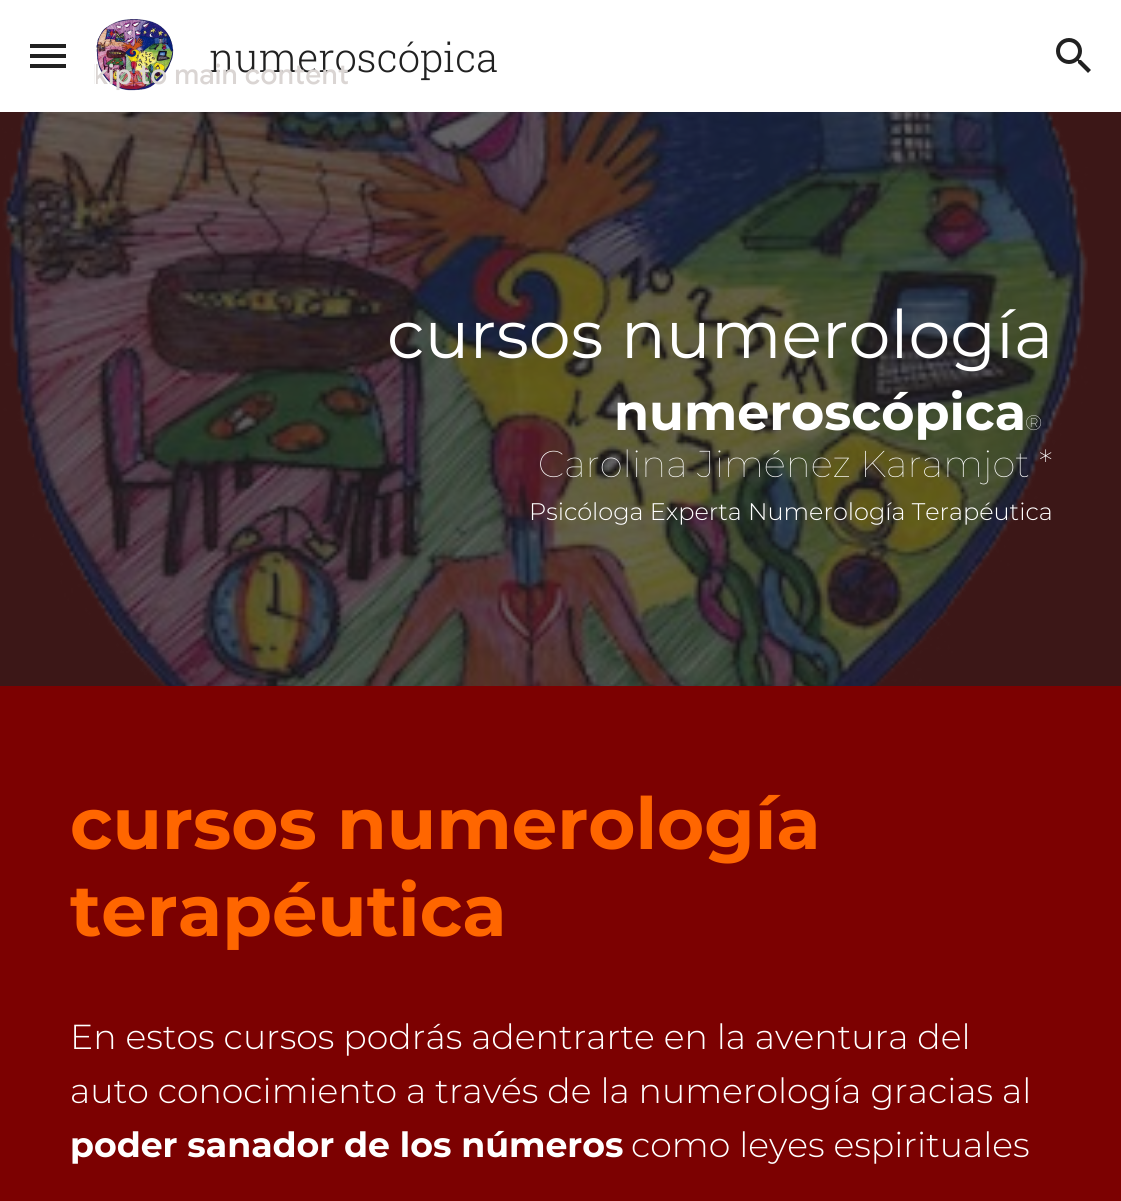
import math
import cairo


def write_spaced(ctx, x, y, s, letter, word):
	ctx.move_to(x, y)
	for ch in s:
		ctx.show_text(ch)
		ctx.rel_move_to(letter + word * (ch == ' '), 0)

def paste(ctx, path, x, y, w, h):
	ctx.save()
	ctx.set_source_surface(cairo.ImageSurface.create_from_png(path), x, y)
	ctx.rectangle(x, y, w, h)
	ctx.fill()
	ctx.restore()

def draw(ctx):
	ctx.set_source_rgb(0.235, 0.09, 0.09)
	ctx.paint()
	ctx.set_source_rgb(1, 1, 1)
	ctx.rectangle(0, 0, 1121, 112)
	ctx.fill()
	paste(ctx, 'media/1.png', 96, 19, 78, 72)
	ctx.select_font_face('Roboto Slab Light')
	ctx.set_font_size(40)
	ctx.set_source_rgb(0.129, 0.129, 0.129)
	ctx.move_to(209, 72)
	ctx.show_text('numeroscópica')
	ctx.select_font_face('Google Sans Medium')
	ctx.set_font_size(28)
	ctx.set_source_rgb(0.855, 0.835, 0.827)
	write_spaced(ctx, 93, 84, 'kip to main content', 0.25, 0)
	ctx.set_source_rgb(1, 1, 1)
	ctx.rectangle(95, 63, 1, 21)
	ctx.fill()
	ctx.set_source_rgb(0.129, 0.129, 0.129)
	ctx.rectangle(30, 44, 36, 4)
	ctx.rectangle(30, 54, 36, 4)
	ctx.rectangle(30, 64, 36, 4)
	ctx.fill()
	paste(ctx, 'media/2.png', 1056, 38, 35, 35)
	paste(ctx, 'media/3.png', 2, 112, 1086, 574)
	ctx.set_source_rgb(0.486, 0.004, 0.004)
	ctx.rectangle(0, 686, 1121, 515)
	ctx.fill()
	ctx.select_font_face('Montserrat')
	ctx.set_font_size(66.75)
	ctx.set_source_rgb(1, 1, 1)
	ctx.move_to(387, 358)
	ctx.show_text('cursos numerología')
	ctx.select_font_face('Montserrat', cairo.FONT_SLANT_NORMAL, cairo.FONT_WEIGHT_BOLD)
	ctx.set_font_size(50.75)
	ctx.move_to(614, 430)
	ctx.show_text('numeroscópica')
	ctx.select_font_face('Montserrat Thin')
	ctx.set_font_size(21)
	ctx.move_to(1025, 430)
	ctx.show_text('®')
	ctx.set_font_size(37.3)
	ctx.move_to(538, 477)
	ctx.show_text('Carolina Jiménez Karamjot *')
	ctx.select_font_face('Montserrat Light')
	ctx.set_font_size(24)
	ctx.move_to(529, 520)
	ctx.show_text('Psicóloga Experta Numerología Terapéutica')
	ctx.select_font_face('Montserrat', cairo.FONT_SLANT_NORMAL, cairo.FONT_WEIGHT_BOLD)
	ctx.set_font_size(72)
	ctx.set_source_rgb(1, 0.4, 0)
	ctx.move_to(70, 849)
	ctx.show_text('cursos numerología')
	ctx.move_to(70, 936)
	ctx.show_text('terapéutica')
	ctx.select_font_face('Montserrat Light')
	ctx.set_font_size(34.7)
	ctx.set_source_rgb(1, 1, 1)
	ctx.move_to(70, 1049)
	ctx.show_text('En estos cursos podrás adentrarte en la aventura del')
	ctx.move_to(70, 1103)
	ctx.show_text('auto conocimiento a través de la numerología gracias al')
	ctx.select_font_face('Montserrat', cairo.FONT_SLANT_NORMAL, cairo.FONT_WEIGHT_BOLD)
	ctx.move_to(70, 1157)
	ctx.show_text('poder sanador de los números')
	ctx.select_font_face('Montserrat Light')
	ctx.move_to(631, 1157)
	ctx.show_text('como leyes espirituales')


surface = cairo.ImageSurface(cairo.FORMAT_RGB24, 1121, 1201)
ctx = cairo.Context(surface)
options = cairo.FontOptions()
options.set_hint_metrics(cairo.HINT_METRICS_OFF)
options.set_hint_style(cairo.HINT_STYLE_NONE)
ctx.set_font_options(options)
ctx.set_miter_limit(4)
draw(ctx)
surface.write_to_png('image.png')
